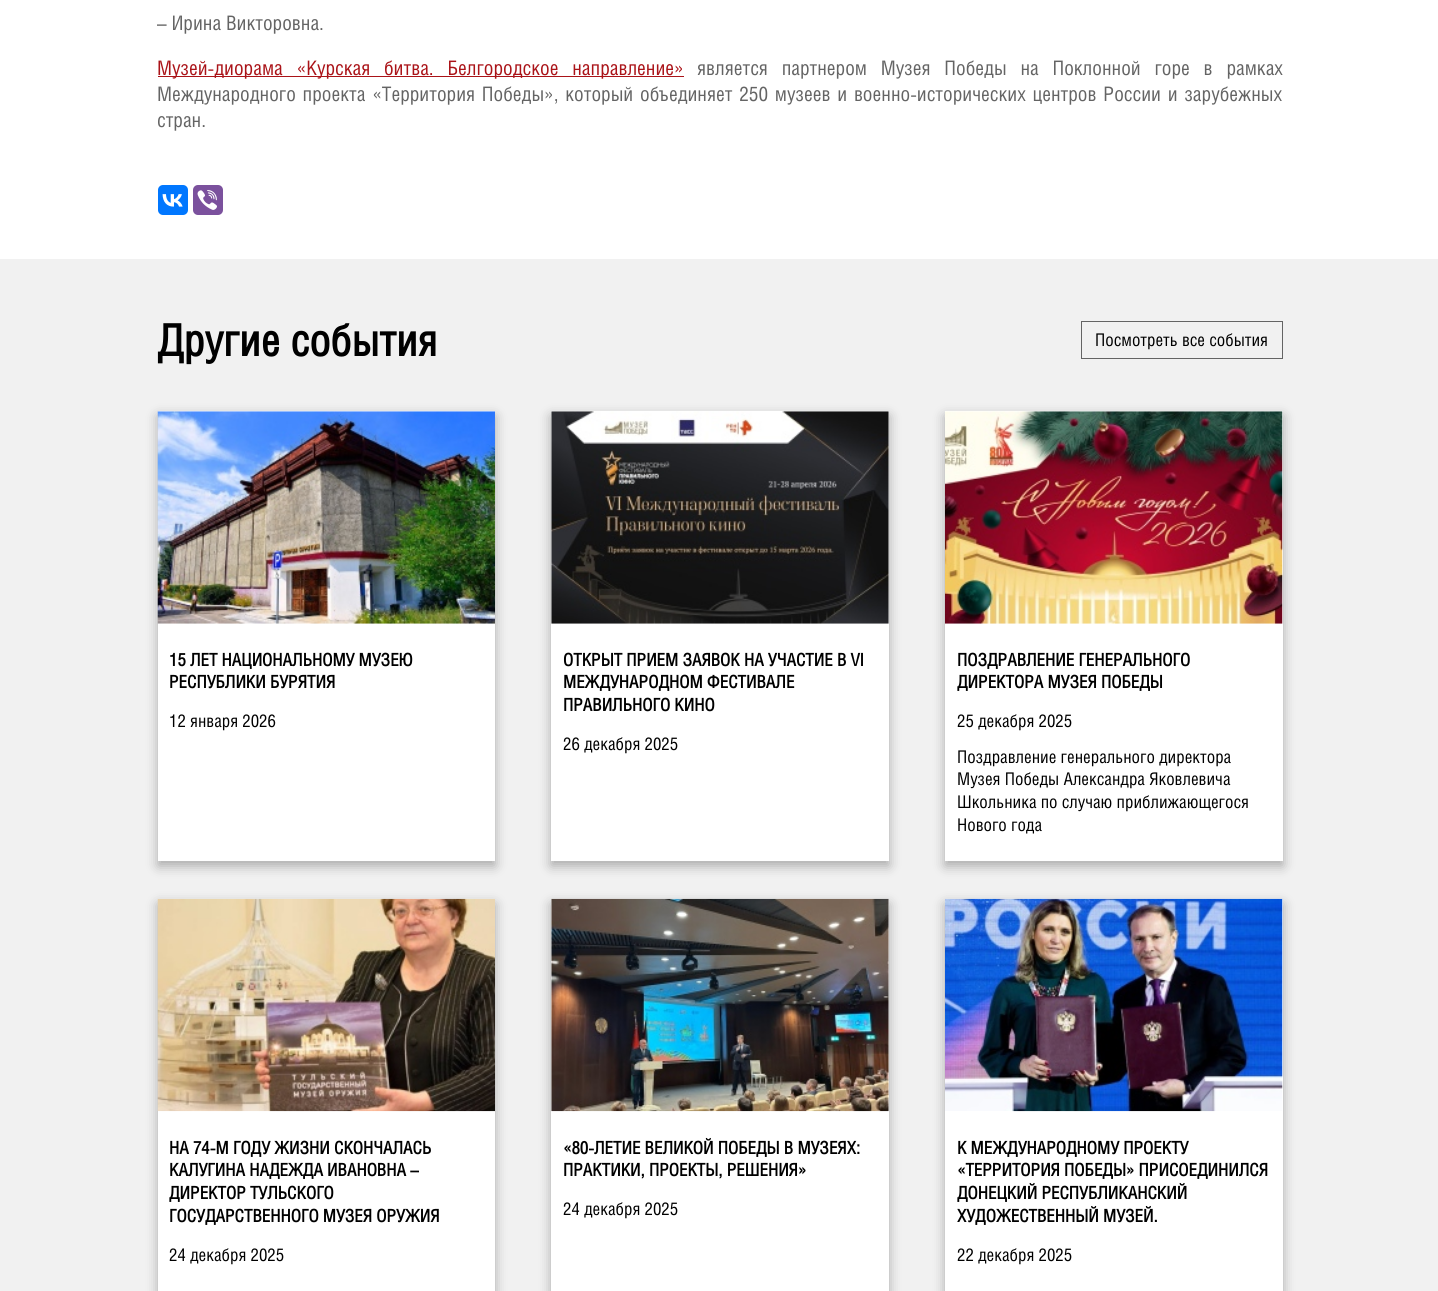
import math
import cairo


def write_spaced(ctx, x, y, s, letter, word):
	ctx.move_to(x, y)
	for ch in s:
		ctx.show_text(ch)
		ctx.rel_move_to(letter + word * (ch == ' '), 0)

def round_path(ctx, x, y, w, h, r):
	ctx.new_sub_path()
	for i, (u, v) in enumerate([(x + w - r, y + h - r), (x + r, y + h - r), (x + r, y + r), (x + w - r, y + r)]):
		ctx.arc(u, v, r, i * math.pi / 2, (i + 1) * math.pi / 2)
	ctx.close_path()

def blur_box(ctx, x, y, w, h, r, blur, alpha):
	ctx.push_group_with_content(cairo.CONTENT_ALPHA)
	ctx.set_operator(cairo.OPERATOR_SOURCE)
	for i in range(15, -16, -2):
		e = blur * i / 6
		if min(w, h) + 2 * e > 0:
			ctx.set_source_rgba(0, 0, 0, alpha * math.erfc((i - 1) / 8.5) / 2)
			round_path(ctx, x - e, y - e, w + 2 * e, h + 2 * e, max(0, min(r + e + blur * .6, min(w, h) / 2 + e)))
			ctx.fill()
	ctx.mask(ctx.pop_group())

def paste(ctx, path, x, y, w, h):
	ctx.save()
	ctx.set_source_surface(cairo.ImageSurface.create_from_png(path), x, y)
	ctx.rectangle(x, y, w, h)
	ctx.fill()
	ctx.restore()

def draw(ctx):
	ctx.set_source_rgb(1, 1, 1)
	ctx.paint()
	ctx.select_font_face('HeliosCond')
	ctx.set_font_size(20)
	ctx.set_source_rgb(0.392, 0.392, 0.392)
	ctx.move_to(157, 30)
	ctx.show_text('– Ирина Викторовна.')
	ctx.set_source_rgb(0.667, 0.075, 0.094)
	ctx.rectangle(158, 76, 526, 1)
	ctx.fill()
	write_spaced(ctx, 157, 75, 'Музей-диорама «Курская битва. Белгородское направление»', 0, 9)
	ctx.set_source_rgb(0.392, 0.392, 0.392)
	write_spaced(ctx, 697, 75, 'является партнером Музея Победы на Поклонной горе в рамках', 0, 9)
	write_spaced(ctx, 157, 101, 'Международного проекта «Территория Победы», который объединяет 250 музеев и военно-исторических центров России и зарубежных', 0, 2)
	ctx.move_to(157, 127)
	ctx.show_text('стран.')
	ctx.set_source_rgb(0, 0.467, 1)
	round_path(ctx, 158, 185, 30, 30, 5)
	ctx.fill()
	paste(ctx, 'media/1.png', 162, 194, 21, 13)
	ctx.set_source_rgb(0.482, 0.318, 0.616)
	round_path(ctx, 193, 185, 30, 30, 5)
	ctx.fill()
	paste(ctx, 'media/2.png', 197, 190, 20, 20)
	ctx.set_source_rgb(0.945, 0.945, 0.945)
	ctx.rectangle(0, 259, 1438, 1032)
	ctx.fill()
	ctx.select_font_face('HeliosCond', cairo.FONT_SLANT_NORMAL, cairo.FONT_WEIGHT_BOLD)
	ctx.set_font_size(43.75)
	ctx.set_source_rgb(0, 0, 0)
	ctx.move_to(157, 356)
	ctx.show_text('Другие события')
	ctx.rectangle(1081.5, 321.5, 201, 37)
	ctx.set_source_rgb(0.392, 0.392, 0.392)
	ctx.set_line_width(1)
	ctx.stroke()
	ctx.select_font_face('HeliosCond')
	ctx.set_font_size(17.5)
	ctx.set_source_rgb(0, 0, 0)
	ctx.move_to(1095, 346)
	ctx.show_text('Посмотреть все события')
	ctx.set_source_rgb(0, 0, 0)
	blur_box(ctx, 158, 416, 337, 450, 0, 6, 0.3)
	ctx.set_source_rgb(1, 1, 1)
	ctx.rectangle(158, 411, 337, 450)
	ctx.fill()
	paste(ctx, 'media/3.png', 157, 411, 338, 213)
	ctx.select_font_face('HeliosCond', cairo.FONT_SLANT_NORMAL, cairo.FONT_WEIGHT_BOLD)
	ctx.set_source_rgb(0, 0, 0)
	ctx.move_to(169, 666)
	ctx.show_text('15 ЛЕТ НАЦИОНАЛЬНОМУ МУЗЕЮ')
	ctx.move_to(169, 688)
	ctx.show_text('РЕСПУБЛИКИ БУРЯТИЯ')
	ctx.select_font_face('HeliosCond')
	ctx.move_to(169, 727)
	ctx.show_text('12 января 2026')
	ctx.set_source_rgb(0, 0, 0)
	blur_box(ctx, 551, 416, 338, 450, 0, 6, 0.3)
	ctx.set_source_rgb(1, 1, 1)
	ctx.rectangle(551, 411, 338, 450)
	ctx.fill()
	paste(ctx, 'media/4.png', 551, 411, 338, 213)
	ctx.select_font_face('HeliosCond', cairo.FONT_SLANT_NORMAL, cairo.FONT_WEIGHT_BOLD)
	ctx.set_source_rgb(0, 0, 0)
	for x, y, s in [
		(563, 666, 'ОТКРЫТ ПРИЕМ ЗАЯВОК НА УЧАСТИЕ В VI'),
		(563, 688, 'МЕЖДУНАРОДНОМ ФЕСТИВАЛЕ'),
		(563, 711, 'ПРАВИЛЬНОГО КИНО'),
	]:
		ctx.move_to(x, y)
		ctx.show_text(s)
	ctx.select_font_face('HeliosCond')
	ctx.move_to(563, 750)
	ctx.show_text('26 декабря 2025')
	ctx.set_source_rgb(0, 0, 0)
	blur_box(ctx, 945, 416, 338, 450, 0, 6, 0.3)
	ctx.set_source_rgb(1, 1, 1)
	ctx.rectangle(945, 411, 338, 450)
	ctx.fill()
	paste(ctx, 'media/5.png', 945, 411, 338, 213)
	ctx.select_font_face('HeliosCond', cairo.FONT_SLANT_NORMAL, cairo.FONT_WEIGHT_BOLD)
	ctx.set_source_rgb(0, 0, 0)
	ctx.move_to(957, 666)
	ctx.show_text('ПОЗДРАВЛЕНИЕ ГЕНЕРАЛЬНОГО')
	ctx.move_to(957, 688)
	ctx.show_text('ДИРЕКТОРА МУЗЕЯ ПОБЕДЫ')
	ctx.select_font_face('HeliosCond')
	for x, y, s in [
		(957, 727, '25 декабря 2025'),
		(957, 763, 'Поздравление генерального директора'),
		(957, 785, 'Музея Победы Александра Яковлевича'),
		(957, 808, 'Школьника по случаю приближающегося'),
		(957, 831, 'Нового года'),
	]:
		ctx.move_to(x, y)
		ctx.show_text(s)
	ctx.set_source_rgb(0, 0, 0)
	blur_box(ctx, 158, 904, 337, 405, 0, 6, 0.3)
	ctx.set_source_rgb(1, 1, 1)
	ctx.rectangle(158, 1111, 337, 180)
	ctx.fill()
	paste(ctx, 'media/6.png', 157, 898, 338, 214)
	ctx.select_font_face('HeliosCond', cairo.FONT_SLANT_NORMAL, cairo.FONT_WEIGHT_BOLD)
	ctx.set_source_rgb(0, 0, 0)
	for x, y, s in [
		(169, 1154, 'НА 74-М ГОДУ ЖИЗНИ СКОНЧАЛАСЬ'),
		(169, 1176, 'КАЛУГИНА НАДЕЖДА ИВАНОВНА –'),
		(169, 1199, 'ДИРЕКТОР ТУЛЬСКОГО'),
		(169, 1222, 'ГОСУДАРСТВЕННОГО МУЗЕЯ ОРУЖИЯ'),
	]:
		ctx.move_to(x, y)
		ctx.show_text(s)
	ctx.select_font_face('HeliosCond')
	ctx.move_to(169, 1261)
	ctx.show_text('24 декабря 2025')
	ctx.set_source_rgb(0, 0, 0)
	blur_box(ctx, 551, 904, 338, 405, 0, 6, 0.3)
	ctx.set_source_rgb(1, 1, 1)
	ctx.rectangle(551, 899, 338, 392)
	ctx.fill()
	paste(ctx, 'media/7.png', 551, 898, 338, 214)
	ctx.select_font_face('HeliosCond', cairo.FONT_SLANT_NORMAL, cairo.FONT_WEIGHT_BOLD)
	ctx.set_source_rgb(0, 0, 0)
	ctx.move_to(563, 1154)
	ctx.show_text('«80-ЛЕТИЕ ВЕЛИКОЙ ПОБЕДЫ В МУЗЕЯХ:')
	ctx.move_to(563, 1176)
	ctx.show_text('ПРАКТИКИ, ПРОЕКТЫ, РЕШЕНИЯ»')
	ctx.select_font_face('HeliosCond')
	ctx.move_to(563, 1215)
	ctx.show_text('24 декабря 2025')
	ctx.set_source_rgb(0, 0, 0)
	blur_box(ctx, 945, 904, 338, 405, 0, 6, 0.3)
	ctx.set_source_rgb(1, 1, 1)
	ctx.rectangle(945, 899, 338, 392)
	ctx.fill()
	paste(ctx, 'media/8.png', 945, 898, 338, 214)
	ctx.select_font_face('HeliosCond', cairo.FONT_SLANT_NORMAL, cairo.FONT_WEIGHT_BOLD)
	ctx.set_source_rgb(0, 0, 0)
	for x, y, s in [
		(957, 1154, 'К МЕЖДУНАРОДНОМУ ПРОЕКТУ'),
		(957, 1176, '«ТЕРРИТОРИЯ ПОБЕДЫ» ПРИСОЕДИНИЛСЯ'),
		(957, 1199, 'ДОНЕЦКИЙ РЕСПУБЛИКАНСКИЙ'),
		(957, 1222, 'ХУДОЖЕСТВЕННЫЙ МУЗЕЙ.'),
	]:
		ctx.move_to(x, y)
		ctx.show_text(s)
	ctx.select_font_face('HeliosCond')
	ctx.move_to(957, 1261)
	ctx.show_text('22 декабря 2025')


surface = cairo.ImageSurface(cairo.FORMAT_RGB24, 1438, 1291)
ctx = cairo.Context(surface)
options = cairo.FontOptions()
options.set_hint_metrics(cairo.HINT_METRICS_OFF)
options.set_hint_style(cairo.HINT_STYLE_NONE)
ctx.set_font_options(options)
ctx.set_miter_limit(4)
draw(ctx)
surface.write_to_png('image.png')
